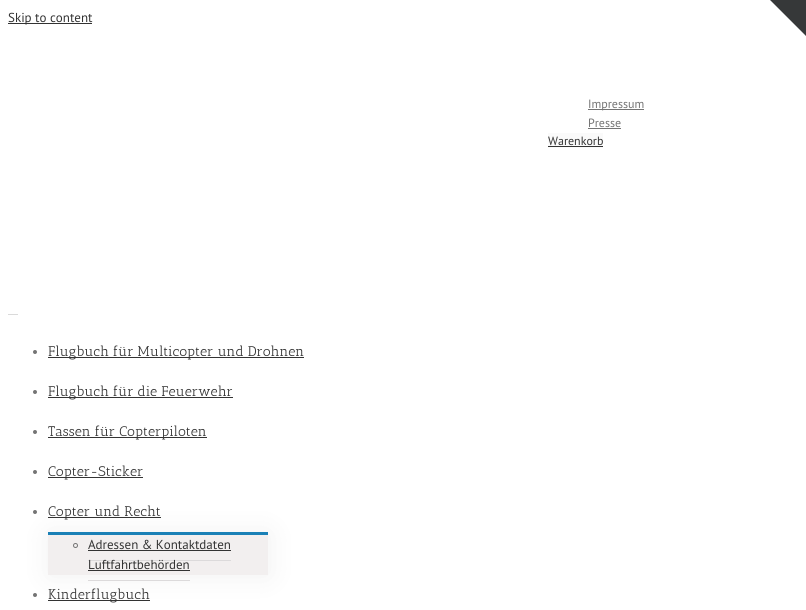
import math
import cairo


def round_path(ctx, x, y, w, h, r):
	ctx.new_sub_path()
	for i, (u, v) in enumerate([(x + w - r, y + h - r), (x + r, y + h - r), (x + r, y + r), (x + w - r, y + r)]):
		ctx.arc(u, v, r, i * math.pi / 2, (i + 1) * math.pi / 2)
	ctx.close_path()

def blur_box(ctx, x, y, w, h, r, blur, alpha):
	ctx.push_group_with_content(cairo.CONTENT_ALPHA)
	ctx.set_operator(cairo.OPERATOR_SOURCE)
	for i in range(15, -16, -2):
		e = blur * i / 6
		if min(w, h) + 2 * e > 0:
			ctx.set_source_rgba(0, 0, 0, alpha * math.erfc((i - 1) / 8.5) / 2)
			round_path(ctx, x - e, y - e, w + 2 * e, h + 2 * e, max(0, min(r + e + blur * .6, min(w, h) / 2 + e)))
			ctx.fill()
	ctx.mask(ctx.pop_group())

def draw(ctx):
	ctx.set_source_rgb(1, 1, 1)
	ctx.paint()
	ctx.set_source_rgb(0.2, 0.2, 0.2)
	ctx.rectangle(8, 23, 84, 1)
	ctx.fill()
	ctx.select_font_face('PT Sans')
	ctx.set_font_size(13)
	ctx.move_to(8, 22)
	ctx.show_text('Skip to content')
	ctx.set_source_rgb(0.212, 0.22, 0.224)
	ctx.new_path()
	ctx.move_to(770, 0)
	ctx.line_to(806, 0)
	ctx.line_to(806, 36)
	ctx.close_path()
	ctx.fill()
	ctx.set_source_rgb(0.455, 0.455, 0.455)
	ctx.rectangle(588, 109, 56, 1)
	ctx.fill()
	ctx.set_font_size(12)
	ctx.move_to(588, 108)
	ctx.show_text('Impressum')
	ctx.move_to(588, 127)
	ctx.show_text('Presse')
	ctx.rectangle(588, 128, 33, 1)
	ctx.fill()
	ctx.set_source_rgb(0.98, 0.98, 0.98)
	ctx.rectangle(548, 133, 55, 15)
	ctx.fill()
	ctx.set_source_rgb(0.2, 0.2, 0.2)
	ctx.move_to(548, 145)
	ctx.show_text('Warenkorb')
	ctx.rectangle(548, 146, 55, 1)
	ctx.fill()
	ctx.set_source_rgb(0.855, 0.855, 0.855)
	ctx.rectangle(8, 314, 10, 1)
	ctx.fill()
	ctx.set_source_rgb(0.455, 0.455, 0.455)
	ctx.arc(35, 352, 2, 0, 2 * math.pi)
	ctx.fill()
	ctx.set_source_rgb(0.2, 0.2, 0.2)
	ctx.rectangle(48, 357, 256, 1)
	ctx.fill()
	ctx.select_font_face('Antic Slab')
	ctx.set_font_size(14)
	ctx.move_to(48, 356)
	ctx.show_text('Flugbuch für Multicopter und Drohnen')
	ctx.set_source_rgb(0.455, 0.455, 0.455)
	ctx.new_path()
	ctx.arc(35, 392, 2, 0, 2 * math.pi)
	ctx.fill()
	ctx.set_source_rgb(0.2, 0.2, 0.2)
	ctx.rectangle(48, 397, 185, 1)
	ctx.fill()
	ctx.move_to(48, 396)
	ctx.show_text('Flugbuch für die Feuerwehr')
	ctx.set_source_rgb(0.455, 0.455, 0.455)
	ctx.new_path()
	ctx.arc(35, 432, 2, 0, 2 * math.pi)
	ctx.fill()
	ctx.set_source_rgb(0.2, 0.2, 0.2)
	ctx.rectangle(48, 437, 159, 1)
	ctx.fill()
	ctx.move_to(48, 436)
	ctx.show_text('Tassen für Copterpiloten')
	ctx.set_source_rgb(0.455, 0.455, 0.455)
	ctx.new_path()
	ctx.arc(35, 472, 2, 0, 2 * math.pi)
	ctx.fill()
	ctx.set_source_rgb(0.2, 0.2, 0.2)
	ctx.rectangle(48, 477, 95, 1)
	ctx.fill()
	ctx.move_to(48, 476)
	ctx.show_text('Copter-Sticker')
	ctx.set_source_rgb(0, 0, 0)
	blur_box(ctx, 49, 533, 220, 43, 0, 15, 0.06)
	ctx.set_source_rgb(0.455, 0.455, 0.455)
	ctx.arc(35, 512, 2, 0, 2 * math.pi)
	ctx.fill()
	ctx.set_source_rgb(0.2, 0.2, 0.2)
	ctx.rectangle(48, 517, 113, 1)
	ctx.fill()
	ctx.move_to(48, 516)
	ctx.show_text('Copter und Recht')
	ctx.set_source_rgb(0.949, 0.937, 0.937)
	ctx.rectangle(48, 535, 220, 40)
	ctx.fill()
	ctx.set_source_rgb(0.102, 0.502, 0.714)
	ctx.rectangle(48, 532, 220, 3)
	ctx.fill()
	ctx.arc(75.5, 545.5, 2, 0, 2 * math.pi)
	ctx.set_source_rgb(0.455, 0.455, 0.455)
	ctx.set_line_width(1)
	ctx.stroke()
	ctx.select_font_face('PT Sans')
	ctx.set_font_size(13)
	ctx.set_source_rgb(0.2, 0.2, 0.2)
	ctx.move_to(88, 549)
	ctx.show_text('Adressen & Kontaktdaten')
	ctx.rectangle(88, 550, 143, 1)
	ctx.fill()
	ctx.set_source_rgb(0.863, 0.855, 0.859)
	ctx.rectangle(88, 560, 143, 1)
	ctx.fill()
	ctx.set_source_rgb(0.2, 0.2, 0.2)
	ctx.move_to(88, 569)
	ctx.show_text('Luftfahrtbehörden')
	ctx.set_source_rgb(0.863, 0.855, 0.859)
	ctx.rectangle(88, 580, 102, 1)
	ctx.fill()
	ctx.set_source_rgb(0.2, 0.2, 0.2)
	ctx.rectangle(88, 570, 102, 1)
	ctx.fill()
	ctx.set_source_rgb(0.455, 0.455, 0.455)
	ctx.arc(35, 595, 2, 0, 2 * math.pi)
	ctx.fill()
	ctx.set_source_rgb(0.2, 0.2, 0.2)
	ctx.rectangle(48, 600, 102, 1)
	ctx.fill()
	ctx.select_font_face('Antic Slab')
	ctx.set_font_size(14)
	ctx.move_to(48, 599)
	ctx.show_text('Kinderflugbuch')


surface = cairo.ImageSurface(cairo.FORMAT_RGB24, 806, 610)
ctx = cairo.Context(surface)
options = cairo.FontOptions()
options.set_hint_metrics(cairo.HINT_METRICS_OFF)
options.set_hint_style(cairo.HINT_STYLE_NONE)
ctx.set_font_options(options)
ctx.set_miter_limit(4)
draw(ctx)
surface.write_to_png('image.png')
